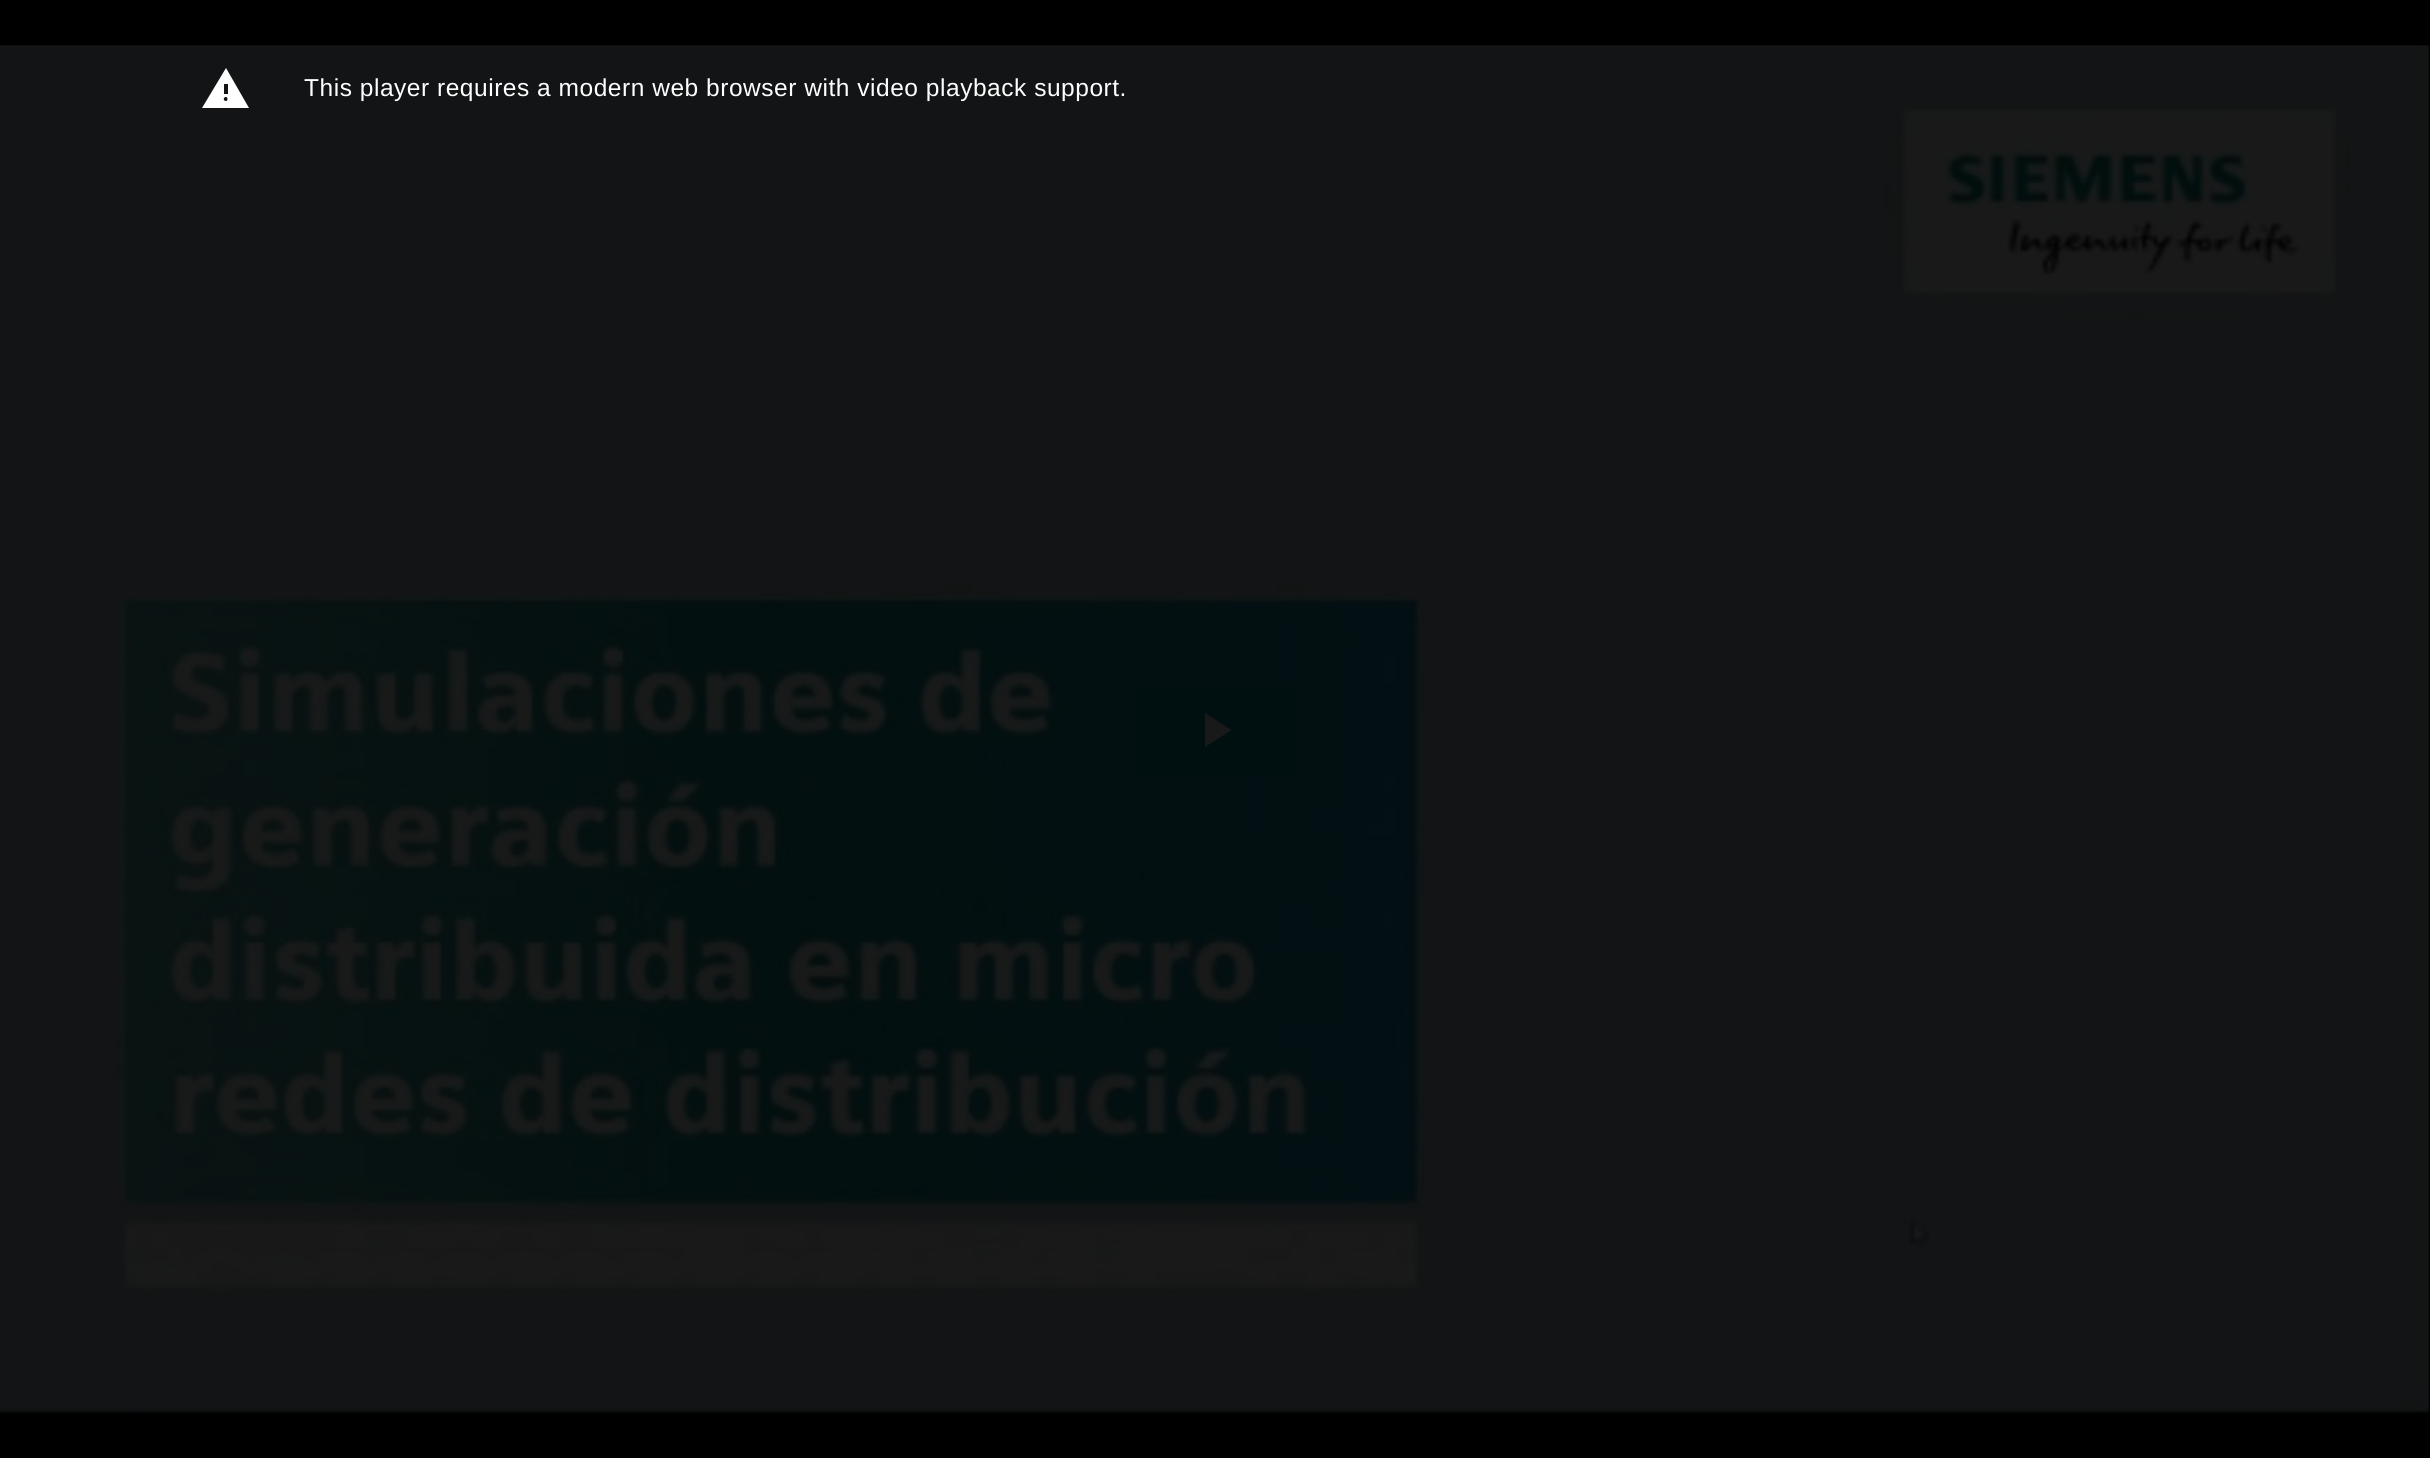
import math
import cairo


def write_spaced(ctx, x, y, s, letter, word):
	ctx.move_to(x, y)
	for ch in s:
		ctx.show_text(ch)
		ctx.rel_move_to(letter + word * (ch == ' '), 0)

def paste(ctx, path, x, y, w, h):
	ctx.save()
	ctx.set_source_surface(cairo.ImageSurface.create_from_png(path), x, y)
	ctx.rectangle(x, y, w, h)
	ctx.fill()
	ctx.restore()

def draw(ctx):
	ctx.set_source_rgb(0, 0, 0)
	ctx.paint()
	paste(ctx, 'media/1.png', 0, 45, 2430, 1369)
	paste(ctx, 'media/2.png', 0, 45, 2430, 1)
	ctx.set_source_rgb(1, 1, 1)
	ctx.new_path()
	ctx.move_to(202, 108)
	ctx.line_to(226, 68)
	ctx.line_to(249, 108)
	ctx.close_path()
	ctx.move_to(226, 101)
	ctx.curve_to(228, 101, 228, 97, 226, 97)
	ctx.curve_to(223, 97, 223, 101, 226, 101)
	ctx.close_path()
	ctx.move_to(224, 94)
	ctx.line_to(228, 94)
	ctx.line_to(228, 84)
	ctx.line_to(224, 84)
	ctx.close_path()
	ctx.fill()
	ctx.select_font_face('Liberation Sans')
	ctx.set_font_size(24.5)
	write_spaced(ctx, 304, 96, 'This player requires a modern web browser with video playback support.', 0.53, 0)
	ctx.set_source_rgb(0, 0.059, 0.059)
	ctx.rectangle(1136, 686, 159, 89)
	ctx.fill()
	ctx.set_source_rgb(0.098, 0.098, 0.098)
	ctx.new_path()
	ctx.move_to(1205, 713)
	ctx.line_to(1205, 747)
	ctx.line_to(1231.5, 730)
	ctx.close_path()
	ctx.fill()


surface = cairo.ImageSurface(cairo.FORMAT_RGB24, 2430, 1458)
ctx = cairo.Context(surface)
options = cairo.FontOptions()
options.set_hint_metrics(cairo.HINT_METRICS_OFF)
options.set_hint_style(cairo.HINT_STYLE_NONE)
ctx.set_font_options(options)
ctx.set_miter_limit(4)
draw(ctx)
surface.write_to_png('image.png')
